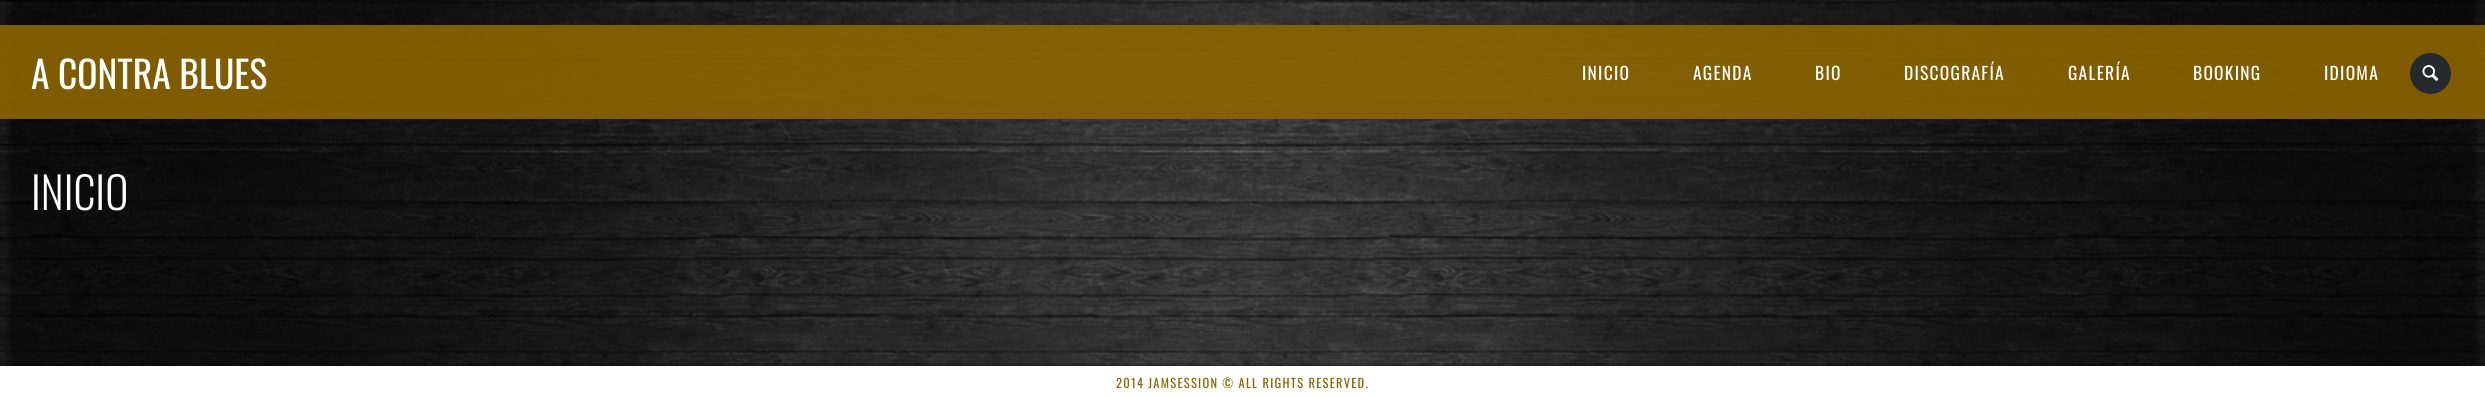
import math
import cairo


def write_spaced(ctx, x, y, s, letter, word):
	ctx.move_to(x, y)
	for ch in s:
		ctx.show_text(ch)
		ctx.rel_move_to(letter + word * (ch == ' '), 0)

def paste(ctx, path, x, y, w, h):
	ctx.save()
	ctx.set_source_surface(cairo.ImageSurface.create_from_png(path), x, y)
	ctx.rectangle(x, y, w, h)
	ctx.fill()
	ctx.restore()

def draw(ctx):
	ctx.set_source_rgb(1, 1, 1)
	ctx.paint()
	paste(ctx, 'media/1.png', 0, 0, 2485, 366)
	ctx.set_source_rgba(0.549, 0.392, 0, 0.9)
	ctx.rectangle(0, 25, 2485, 94)
	ctx.fill()
	ctx.select_font_face('Oswald')
	ctx.set_font_size(37.5)
	ctx.set_source_rgb(1, 1, 1)
	ctx.move_to(31, 89)
	ctx.show_text('A CONTRA BLUES')
	ctx.set_font_size(17.5)
	for x, y, s in [
		(1582, 80, 'INICIO'),
		(1693, 80, 'AGENDA'),
		(1815, 80, 'BIO'),
		(1904, 80, 'DISCOGRAFÍA'),
		(2068, 80, 'GALERÍA'),
		(2193, 80, 'BOOKING'),
		(2324, 80, 'IDIOMA'),
	]:
		write_spaced(ctx, x, y, s, 1.25, 0)
	ctx.set_source_rgb(0.145, 0.165, 0.184)
	ctx.new_path()
	ctx.arc(2430.5, 73.5, 20.5, 0, 2 * math.pi)
	ctx.fill()
	paste(ctx, 'media/2.png', 2422, 65, 17, 16)
	ctx.select_font_face('Oswald Light')
	ctx.set_font_size(44)
	ctx.set_source_rgb(1, 1, 1)
	ctx.move_to(31, 210)
	ctx.show_text('INICIO')
	ctx.select_font_face('Oswald')
	ctx.set_font_size(12.5)
	ctx.set_source_rgb(0.549, 0.392, 0)
	write_spaced(ctx, 1116, 388, '2014 JAMSESSION © ALL RIGHTS RESERVED.', 1.25, 0)


surface = cairo.ImageSurface(cairo.FORMAT_RGB24, 2485, 397)
ctx = cairo.Context(surface)
options = cairo.FontOptions()
options.set_hint_metrics(cairo.HINT_METRICS_OFF)
options.set_hint_style(cairo.HINT_STYLE_NONE)
ctx.set_font_options(options)
ctx.set_miter_limit(4)
draw(ctx)
surface.write_to_png('image.png')
